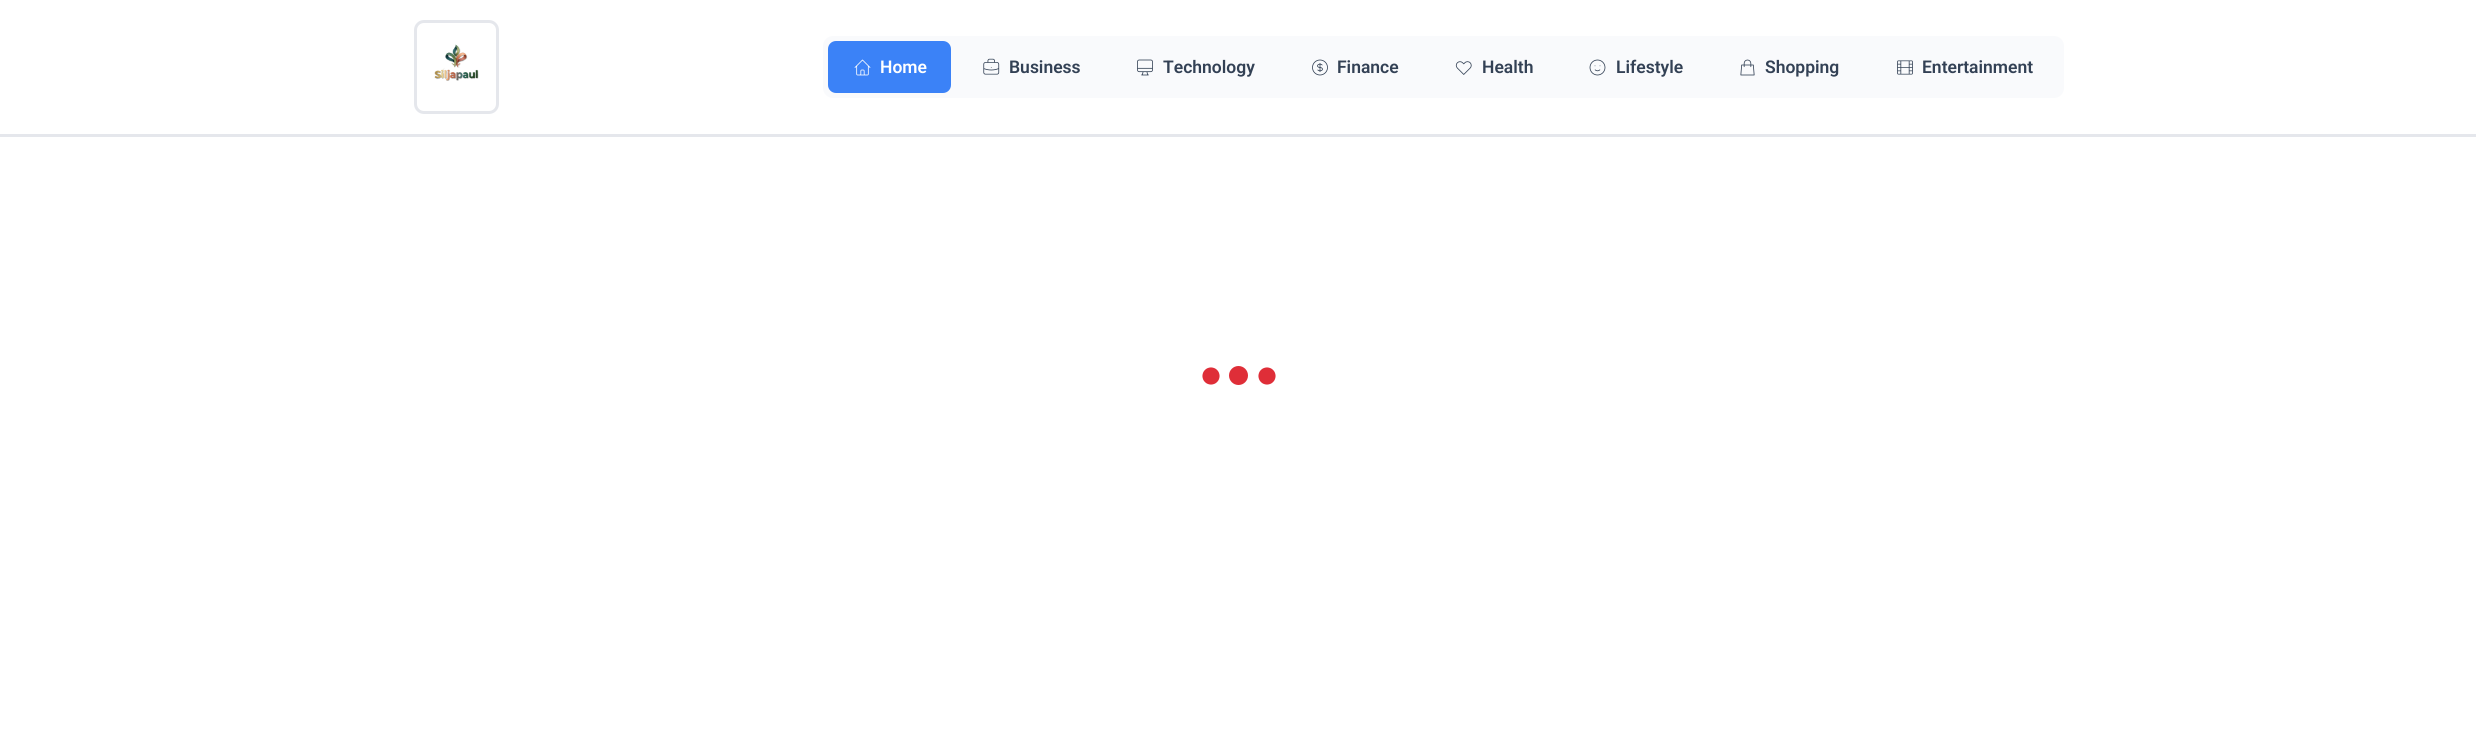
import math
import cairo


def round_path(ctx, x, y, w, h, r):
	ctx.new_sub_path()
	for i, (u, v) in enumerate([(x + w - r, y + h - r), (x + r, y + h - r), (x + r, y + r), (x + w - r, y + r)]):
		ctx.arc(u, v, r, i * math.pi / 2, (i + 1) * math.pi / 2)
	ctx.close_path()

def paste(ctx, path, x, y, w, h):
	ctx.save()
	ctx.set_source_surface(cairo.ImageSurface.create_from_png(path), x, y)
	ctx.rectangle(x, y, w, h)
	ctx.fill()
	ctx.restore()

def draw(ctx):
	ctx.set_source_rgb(1, 1, 1)
	ctx.paint()
	ctx.set_source_rgb(0.898, 0.906, 0.922)
	ctx.rectangle(0, 134, 2476, 3)
	ctx.fill()
	round_path(ctx, 415.5, 21.5, 82, 91, 8.5)
	ctx.set_line_width(3)
	ctx.stroke()
	paste(ctx, 'media/1.png', 434, 44, 45, 37)
	ctx.set_source_rgb(0.973, 0.98, 0.988)
	round_path(ctx, 823, 36, 1241, 62, 10)
	ctx.fill()
	ctx.set_source_rgb(0.231, 0.51, 0.965)
	round_path(ctx, 828, 41, 123, 52, 8)
	ctx.fill()
	paste(ctx, 'media/2.png', 854, 59, 17, 17)
	ctx.select_font_face('Roboto SemiBold')
	ctx.set_font_size(17.5)
	ctx.set_source_rgb(1, 1, 1)
	ctx.move_to(880, 73)
	ctx.show_text('Home')
	paste(ctx, 'media/3.png', 983, 58, 17, 17)
	ctx.set_source_rgb(0.2, 0.255, 0.333)
	ctx.move_to(1009, 73)
	ctx.show_text('Business')
	paste(ctx, 'media/4.png', 1137, 59, 16, 17)
	ctx.move_to(1163, 73)
	ctx.show_text('Technology')
	paste(ctx, 'media/5.png', 1312, 59, 16, 17)
	ctx.move_to(1337, 73)
	ctx.show_text('Finance')
	paste(ctx, 'media/6.png', 1455, 61, 17, 14)
	ctx.move_to(1482, 73)
	ctx.show_text('Health')
	paste(ctx, 'media/7.png', 1589, 59, 17, 17)
	ctx.move_to(1616, 73)
	ctx.show_text('Lifestyle')
	paste(ctx, 'media/8.png', 1740, 59, 15, 17)
	ctx.move_to(1765, 73)
	ctx.show_text('Shopping')
	paste(ctx, 'media/9.png', 1897, 60, 16, 15)
	ctx.move_to(1922, 73)
	ctx.show_text('Entertainment')
	gradient = cairo.RadialGradient(1267, 376, 0, 1267, 376, 9)
	gradient.add_color_stop_rgba(0.9, 0.875, 0.18, 0.22, 1)
	gradient.add_color_stop_rgba(1, 1, 1, 1, 1)
	ctx.set_source(gradient)
	ctx.rectangle(1258, 367, 18, 18)
	ctx.fill()
	gradient = cairo.RadialGradient(1211, 376, 0, 1211, 376, 9)
	gradient.add_color_stop_rgba(0.9, 0.875, 0.18, 0.22, 1)
	gradient.add_color_stop_rgba(1, 1, 1, 1, 1)
	ctx.set_source(gradient)
	ctx.rectangle(1202, 367, 18, 18)
	ctx.fill()
	ctx.set_source_rgb(0.875, 0.18, 0.22)
	ctx.arc(1238.5, 375.5, 9.5, 0, 2 * math.pi)
	ctx.fill()


surface = cairo.ImageSurface(cairo.FORMAT_RGB24, 2476, 750)
ctx = cairo.Context(surface)
options = cairo.FontOptions()
options.set_hint_metrics(cairo.HINT_METRICS_OFF)
options.set_hint_style(cairo.HINT_STYLE_NONE)
ctx.set_font_options(options)
ctx.set_miter_limit(4)
draw(ctx)
surface.write_to_png('image.png')
